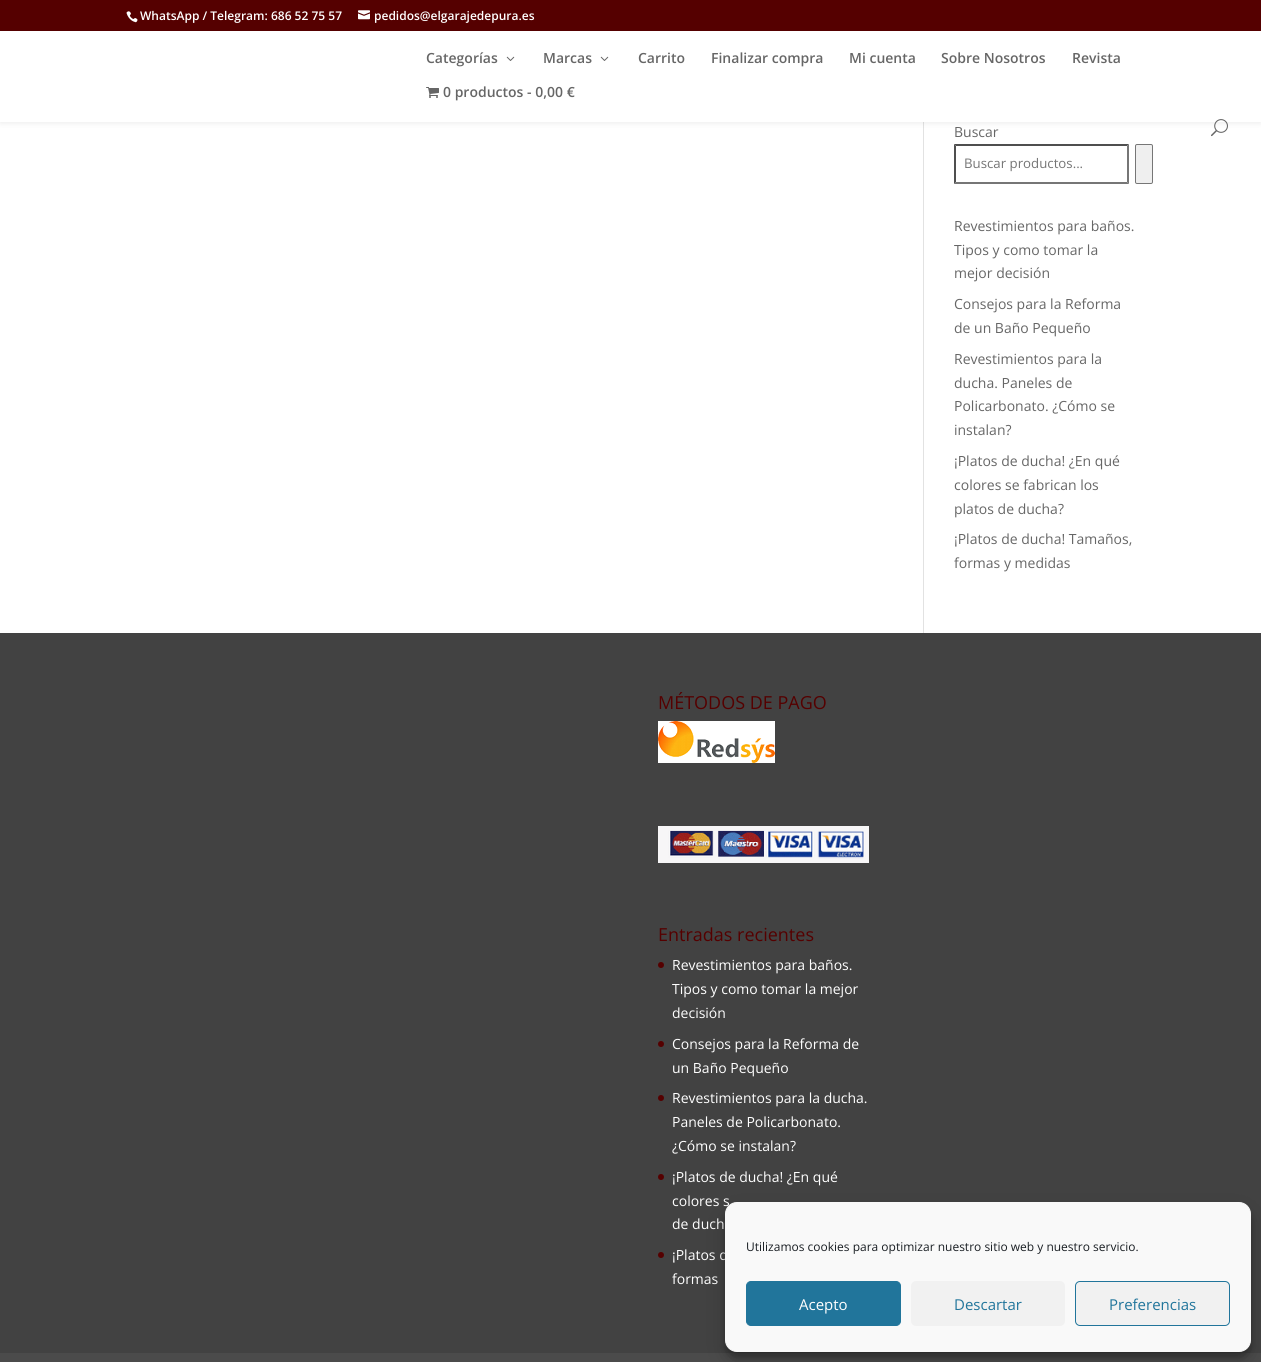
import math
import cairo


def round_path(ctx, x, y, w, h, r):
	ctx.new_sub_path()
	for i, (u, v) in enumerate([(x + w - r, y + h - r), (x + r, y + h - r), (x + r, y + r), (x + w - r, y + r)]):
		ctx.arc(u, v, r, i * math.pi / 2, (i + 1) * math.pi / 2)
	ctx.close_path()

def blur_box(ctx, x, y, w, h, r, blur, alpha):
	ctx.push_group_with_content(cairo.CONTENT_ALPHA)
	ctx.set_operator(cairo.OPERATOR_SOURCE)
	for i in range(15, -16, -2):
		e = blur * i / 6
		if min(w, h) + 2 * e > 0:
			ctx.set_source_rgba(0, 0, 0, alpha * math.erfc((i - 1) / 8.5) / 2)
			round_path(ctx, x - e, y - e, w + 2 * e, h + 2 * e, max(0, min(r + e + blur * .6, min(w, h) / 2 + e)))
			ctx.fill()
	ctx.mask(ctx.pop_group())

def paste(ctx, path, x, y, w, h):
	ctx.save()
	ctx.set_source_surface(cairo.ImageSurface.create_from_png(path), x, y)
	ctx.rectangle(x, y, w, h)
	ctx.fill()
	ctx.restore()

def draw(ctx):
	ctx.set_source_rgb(1, 1, 1)
	ctx.paint()
	ctx.set_source_rgb(0.886, 0.886, 0.886)
	ctx.rectangle(923, 122, 1, 511)
	ctx.fill()
	ctx.set_source_rgb(0, 0, 0)
	blur_box(ctx, 0, 31, 1261, 91, 0, 3.5, 0.1)
	ctx.set_source_rgb(0.333, 0, 0)
	ctx.rectangle(0, 0, 1261, 31)
	ctx.fill()
	paste(ctx, 'media/1.png', 126, 11, 12, 12)
	ctx.select_font_face('Open Sans SemiBold')
	ctx.set_font_size(12)
	ctx.set_source_rgb(1, 1, 1)
	ctx.move_to(140, 20)
	ctx.show_text('WhatsApp / Telegram: 686 52 75 57')
	paste(ctx, 'media/2.png', 358, 10, 12, 10)
	ctx.move_to(374, 20)
	ctx.show_text('pedidos@elgarajedepura.es')
	ctx.rectangle(0, 31, 1261, 91)
	ctx.fill()
	ctx.set_font_size(14)
	ctx.set_source_rgb(0.4, 0.4, 0.4)
	ctx.move_to(426, 63)
	ctx.show_text('Categorías')
	paste(ctx, 'media/3.png', 506, 56, 9, 5)
	ctx.move_to(543, 63)
	ctx.show_text('Marcas')
	paste(ctx, 'media/3.png', 600, 56, 9, 5)
	for x, y, s in [
		(638, 63, 'Carrito'),
		(711, 63, 'Finalizar compra'),
		(849, 63, 'Mi cuenta'),
		(941, 63, 'Sobre Nosotros'),
		(1072, 63, 'Revista'),
	]:
		ctx.move_to(x, y)
		ctx.show_text(s)
	paste(ctx, 'media/4.png', 426, 87, 13, 11)
	ctx.move_to(443, 97)
	ctx.show_text('0 productos - 0,00 €')
	paste(ctx, 'media/5.png', 1211, 119, 17, 18)
	ctx.select_font_face('Open Sans')
	ctx.move_to(954, 137)
	ctx.show_text('Buscar')
	ctx.set_source_rgb(0.31, 0.31, 0.31)
	ctx.new_path()
	ctx.move_to(954, 144)
	ctx.line_to(1129, 144)
	ctx.line_to(1127, 146)
	ctx.line_to(956, 146)
	ctx.close_path()
	ctx.fill()
	ctx.set_source_rgb(0.463, 0.463, 0.463)
	ctx.new_path()
	ctx.move_to(1129, 144)
	ctx.line_to(1129, 184)
	ctx.line_to(1127, 182)
	ctx.line_to(1127, 146)
	ctx.close_path()
	ctx.fill()
	ctx.new_path()
	ctx.move_to(1129, 184)
	ctx.line_to(954, 184)
	ctx.line_to(956, 182)
	ctx.line_to(1127, 182)
	ctx.close_path()
	ctx.fill()
	ctx.set_source_rgb(0.31, 0.31, 0.31)
	ctx.new_path()
	ctx.move_to(954, 184)
	ctx.line_to(954, 144)
	ctx.line_to(956, 146)
	ctx.line_to(956, 182)
	ctx.close_path()
	ctx.fill()
	ctx.set_font_size(13.25)
	ctx.set_source_rgb(0.459, 0.459, 0.459)
	ctx.move_to(964, 168)
	ctx.show_text('Buscar productos...')
	ctx.set_source_rgb(0.937, 0.937, 0.937)
	round_path(ctx, 1135.5, 144.5, 17, 39, 1.5)
	ctx.fill_preserve()
	ctx.set_source_rgb(0.463, 0.463, 0.463)
	ctx.set_line_width(1)
	ctx.stroke()
	ctx.set_font_size(14)
	ctx.set_source_rgb(0.4, 0.4, 0.4)
	for x, y, s in [
		(954, 231, 'Revestimientos para baños.'),
		(954, 255, 'Tipos y como tomar la'),
		(954, 278, 'mejor decisión'),
		(954, 309, 'Consejos para la Reforma'),
		(954, 333, 'de un Baño Pequeño'),
		(954, 364, 'Revestimientos para la'),
		(954, 388, 'ducha. Paneles de'),
		(954, 411, 'Policarbonato. ¿Cómo se'),
		(954, 435, 'instalan?'),
		(954, 466, '¡Platos de ducha! ¿En qué'),
		(954, 490, 'colores se fabrican los'),
		(954, 514, 'platos de ducha?'),
		(954, 544, '¡Platos de ducha! Tamaños,'),
		(954, 568, 'formas y medidas'),
	]:
		ctx.move_to(x, y)
		ctx.show_text(s)
	ctx.set_source_rgb(0.259, 0.259, 0.259)
	ctx.rectangle(0, 633, 1261, 720)
	ctx.fill()
	ctx.set_font_size(18)
	ctx.set_source_rgb(0.333, 0, 0)
	ctx.move_to(658, 709)
	ctx.show_text('MÉTODOS DE PAGO')
	paste(ctx, 'media/6.png', 658, 721, 117, 42)
	paste(ctx, 'media/7.png', 658, 826, 211, 37)
	ctx.move_to(658, 941)
	ctx.show_text('Entradas recientes')
	ctx.new_path()
	ctx.arc(661, 965, 3, 0, 2 * math.pi)
	ctx.fill()
	ctx.set_font_size(14)
	ctx.set_source_rgb(1, 1, 1)
	for x, y, s in [
		(672, 970, 'Revestimientos para baños.'),
		(672, 994, 'Tipos y como tomar la mejor'),
		(672, 1018, 'decisión'),
	]:
		ctx.move_to(x, y)
		ctx.show_text(s)
	ctx.set_source_rgb(0.333, 0, 0)
	ctx.new_path()
	ctx.arc(661, 1044, 3, 0, 2 * math.pi)
	ctx.fill()
	ctx.set_source_rgb(1, 1, 1)
	ctx.move_to(672, 1049)
	ctx.show_text('Consejos para la Reforma de')
	ctx.move_to(672, 1073)
	ctx.show_text('un Baño Pequeño')
	ctx.set_source_rgb(0.333, 0, 0)
	ctx.new_path()
	ctx.arc(661, 1098, 3, 0, 2 * math.pi)
	ctx.fill()
	ctx.set_source_rgb(1, 1, 1)
	for x, y, s in [
		(672, 1103, 'Revestimientos para la ducha.'),
		(672, 1127, 'Paneles de Policarbonato.'),
		(672, 1151, '¿Cómo se instalan?'),
	]:
		ctx.move_to(x, y)
		ctx.show_text(s)
	ctx.set_source_rgb(0.333, 0, 0)
	ctx.new_path()
	ctx.arc(661, 1177, 3, 0, 2 * math.pi)
	ctx.fill()
	ctx.set_source_rgb(1, 1, 1)
	for x, y, s in [
		(672, 1182, '¡Platos de ducha! ¿En qué'),
		(672, 1206, 'colores s'),
		(672, 1229, 'de duch'),
	]:
		ctx.move_to(x, y)
		ctx.show_text(s)
	ctx.set_source_rgb(0.333, 0, 0)
	ctx.new_path()
	ctx.arc(661, 1255, 3, 0, 2 * math.pi)
	ctx.fill()
	ctx.set_source_rgb(1, 1, 1)
	ctx.move_to(672, 1260)
	ctx.show_text('¡Platos d')
	ctx.move_to(672, 1284)
	ctx.show_text('formas')
	ctx.set_source_rgb(0.294, 0.294, 0.294)
	ctx.rectangle(0, 1353, 1261, 9)
	ctx.fill()
	ctx.set_source_rgb(0, 0, 0)
	blur_box(ctx, 725, 1208, 526, 150, 12, 3, 0.23)
	blur_box(ctx, 725, 1212, 526, 150, 12, 10, 0.19)
	ctx.set_source_rgb(0.976, 0.976, 0.976)
	round_path(ctx, 725.5, 1202.5, 525, 149, 11.5)
	ctx.fill_preserve()
	ctx.stroke()
	ctx.set_font_size(12)
	ctx.set_source_rgb(0.098, 0.118, 0.137)
	ctx.move_to(746, 1251)
	ctx.show_text('Utilizamos cookies para optimizar nuestro sitio web y nuestro servicio.')
	ctx.set_source_rgb(0.129, 0.459, 0.608)
	round_path(ctx, 746.5, 1281.5, 154, 44, 4.5)
	ctx.fill_preserve()
	ctx.stroke()
	ctx.set_font_size(15)
	ctx.set_source_rgb(1, 1, 1)
	ctx.move_to(799, 1310)
	ctx.show_text('Acepto')
	ctx.set_source_rgb(0.945, 0.945, 0.945)
	round_path(ctx, 911, 1281, 154, 45, 5)
	ctx.fill()
	ctx.set_source_rgb(0.129, 0.459, 0.608)
	ctx.move_to(954, 1310)
	ctx.show_text('Descartar')
	ctx.set_source_rgb(0.945, 0.945, 0.945)
	round_path(ctx, 1075.5, 1281.5, 154, 44, 4.5)
	ctx.fill_preserve()
	ctx.set_source_rgb(0.129, 0.459, 0.608)
	ctx.stroke()
	ctx.move_to(1109, 1310)
	ctx.show_text('Preferencias')


surface = cairo.ImageSurface(cairo.FORMAT_RGB24, 1261, 1362)
ctx = cairo.Context(surface)
options = cairo.FontOptions()
options.set_hint_metrics(cairo.HINT_METRICS_OFF)
options.set_hint_style(cairo.HINT_STYLE_NONE)
ctx.set_font_options(options)
ctx.set_miter_limit(4)
draw(ctx)
surface.write_to_png('image.png')
